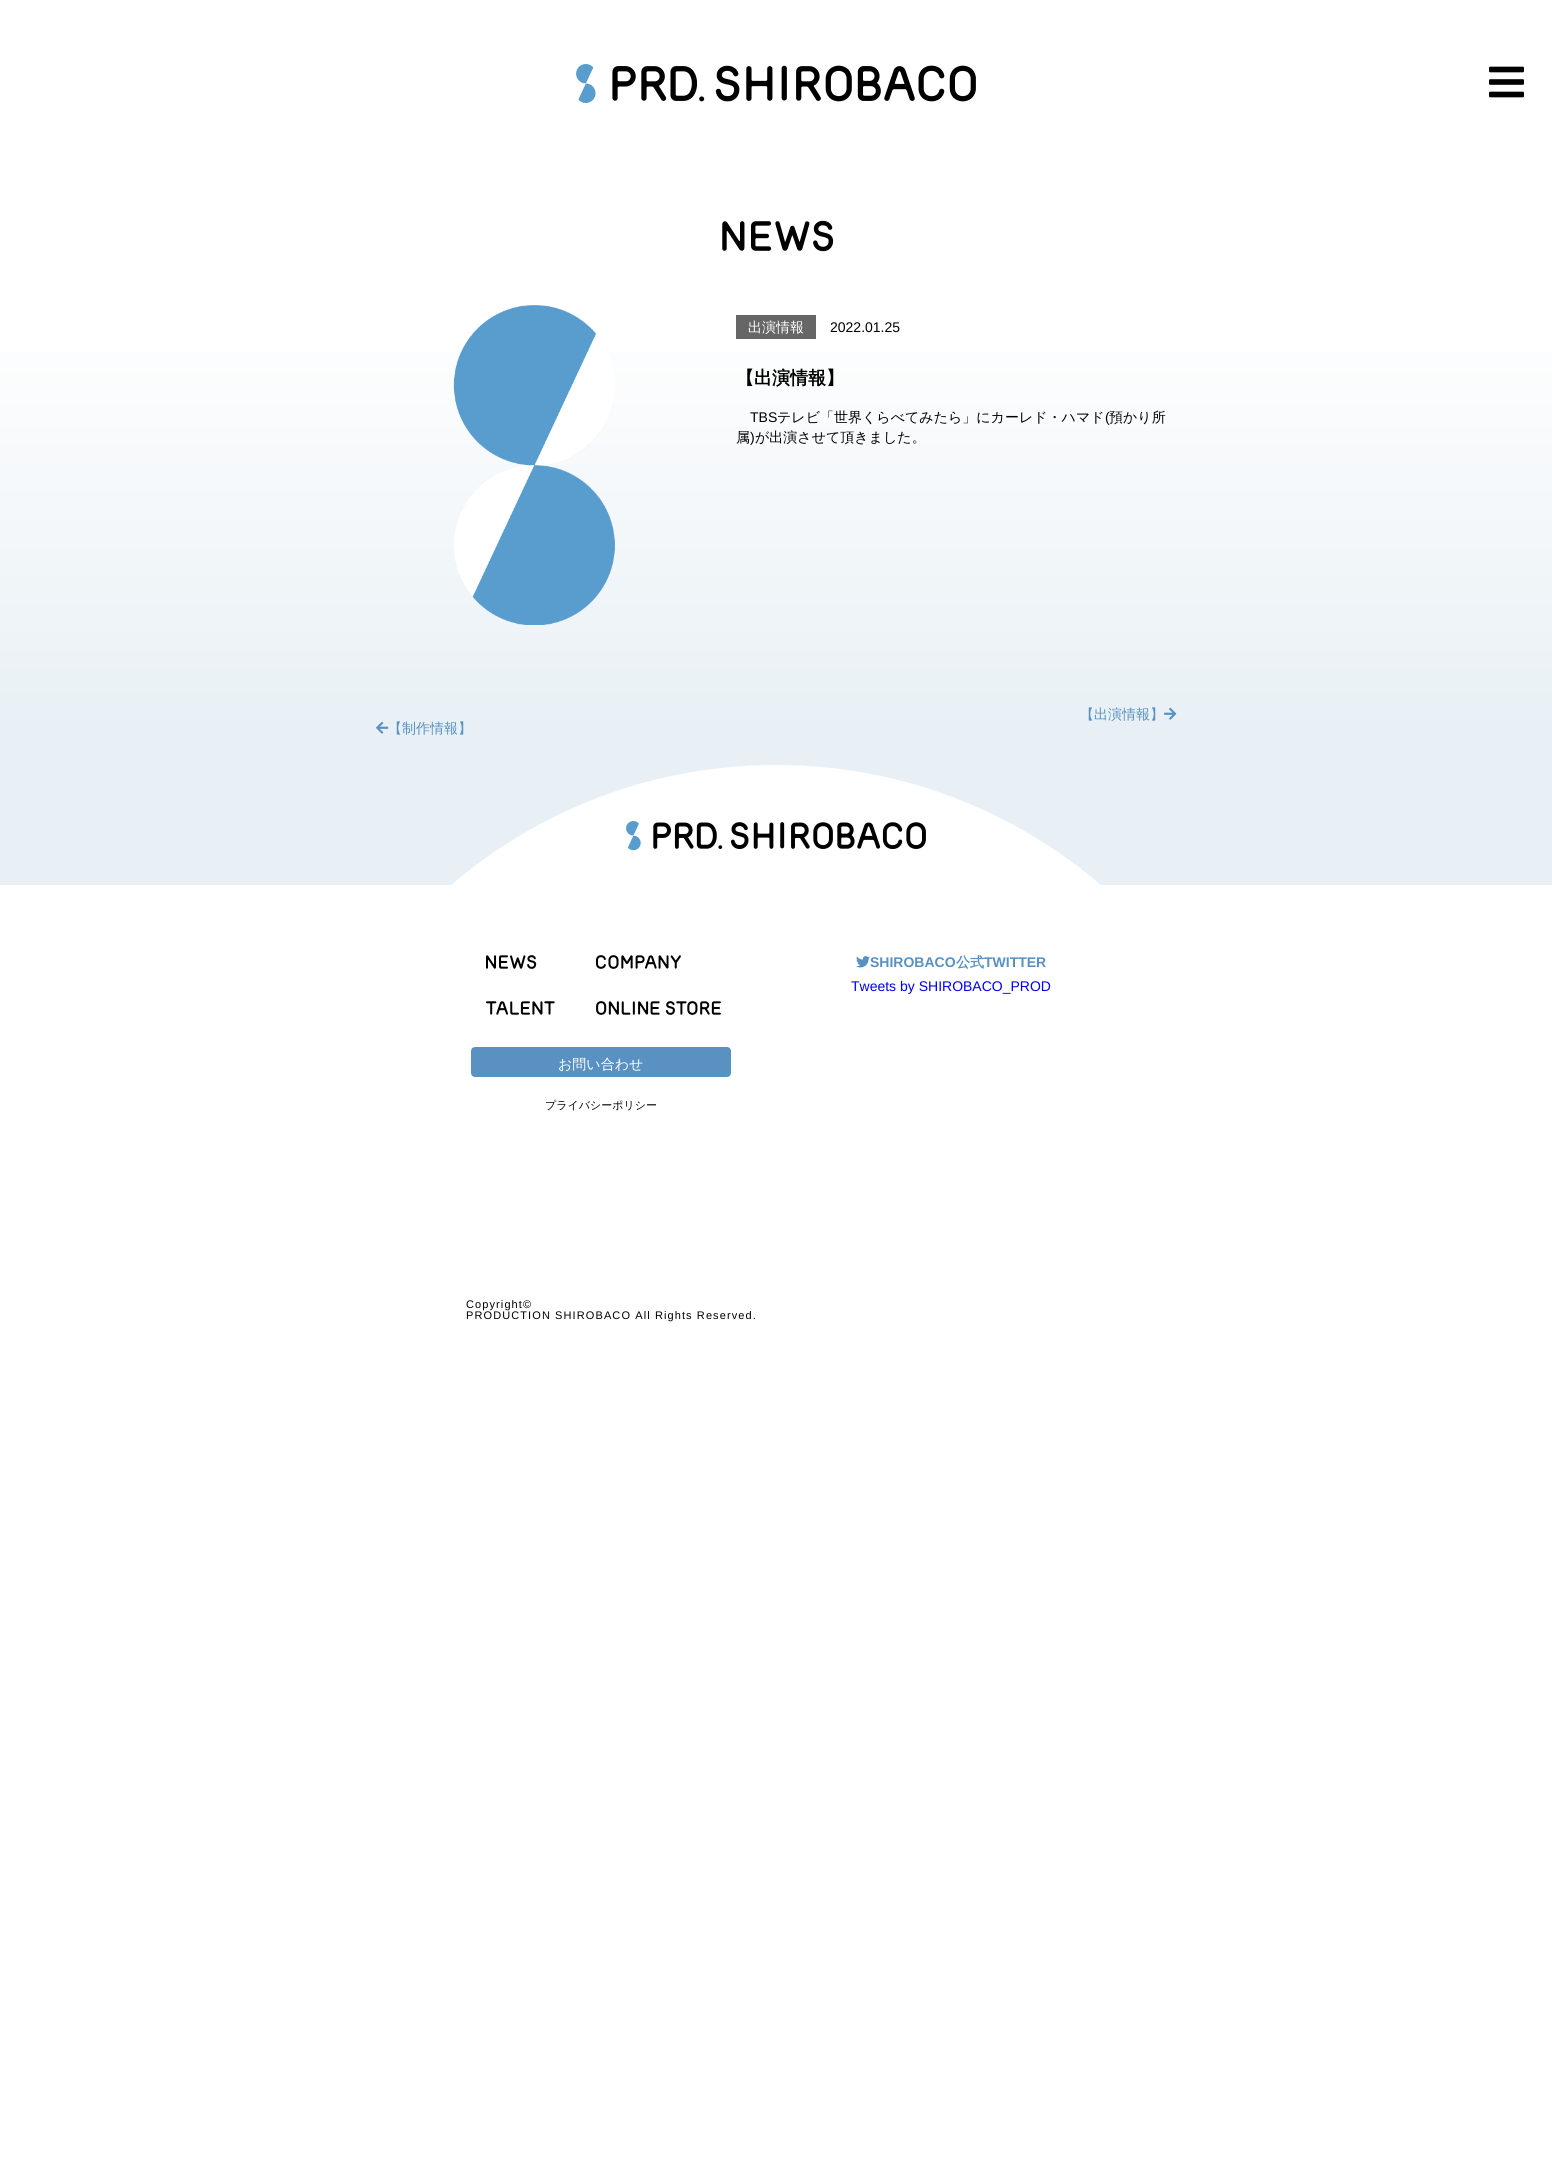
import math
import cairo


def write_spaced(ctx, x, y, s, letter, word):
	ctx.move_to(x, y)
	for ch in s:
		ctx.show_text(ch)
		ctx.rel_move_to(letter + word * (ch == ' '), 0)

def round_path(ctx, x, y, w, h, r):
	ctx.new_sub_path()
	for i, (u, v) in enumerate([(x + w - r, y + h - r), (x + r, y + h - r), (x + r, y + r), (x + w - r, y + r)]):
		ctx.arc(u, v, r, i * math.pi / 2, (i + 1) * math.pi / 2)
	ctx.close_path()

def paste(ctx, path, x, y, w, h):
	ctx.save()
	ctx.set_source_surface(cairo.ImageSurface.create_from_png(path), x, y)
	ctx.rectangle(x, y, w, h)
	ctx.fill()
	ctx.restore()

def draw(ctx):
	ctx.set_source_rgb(1, 1, 1)
	ctx.paint()
	paste(ctx, 'media/1.png', 576, 64, 400, 39)
	paste(ctx, 'media/2.png', 1489, 66, 35, 32)
	paste(ctx, 'media/3.png', 722, 220, 112, 32)
	gradient = cairo.LinearGradient(776, 305, 776, 735)
	gradient.add_color_stop_rgba(0, 1, 1, 1, 1)
	gradient.add_color_stop_rgba(1, 0.91, 0.941, 0.961, 1)
	ctx.set_source(gradient)
	ctx.rectangle(0, 352, 1552, 383)
	ctx.fill()
	paste(ctx, 'media/4.png', 453, 305, 162, 320)
	ctx.set_source_rgb(0.4, 0.4, 0.4)
	ctx.rectangle(736, 315, 80, 24)
	ctx.fill()
	ctx.select_font_face('WenQuanYi Zen Hei Medium')
	ctx.set_font_size(14)
	ctx.set_source_rgb(1, 1, 1)
	ctx.move_to(748, 332)
	ctx.show_text('出演情報')
	ctx.select_font_face('Liberation Sans')
	ctx.set_source_rgb(0, 0, 0)
	ctx.move_to(830, 332)
	ctx.show_text('2022.01.25')
	ctx.select_font_face('WenQuanYi Zen Hei', cairo.FONT_SLANT_NORMAL, cairo.FONT_WEIGHT_BOLD)
	ctx.set_font_size(18)
	ctx.move_to(736, 384)
	ctx.show_text('【出演情報】')
	ctx.select_font_face('Liberation Sans')
	ctx.set_font_size(14)
	ctx.move_to(750, 422)
	ctx.show_text('TBS')
	ctx.select_font_face('WenQuanYi Zen Hei Medium')
	ctx.move_to(777, 422)
	ctx.show_text('テレビ「世界くらべてみたら」にカーレド・ハマド')
	ctx.select_font_face('Liberation Sans')
	ctx.move_to(1105, 422)
	ctx.show_text('(')
	ctx.select_font_face('WenQuanYi Zen Hei Medium')
	ctx.move_to(1109, 422)
	ctx.show_text('預かり所')
	ctx.move_to(736, 442)
	ctx.show_text('属')
	ctx.select_font_face('Liberation Sans')
	ctx.move_to(750, 442)
	ctx.show_text(')')
	ctx.select_font_face('WenQuanYi Zen Hei Medium')
	ctx.move_to(755, 442)
	ctx.show_text('が出演させて頂きました。')
	ctx.set_source_rgb(0.345, 0.569, 0.761)
	ctx.move_to(1080, 719)
	ctx.show_text('【出演情報】')
	paste(ctx, 'media/5.png', 1164, 707, 13, 13)
	paste(ctx, 'media/6.png', 376, 721, 13, 13)
	ctx.move_to(388, 733)
	ctx.show_text('【制作情報】')
	ctx.set_source_rgb(0.91, 0.941, 0.961)
	ctx.rectangle(0, 735, 1552, 150)
	ctx.fill()
	ctx.set_source_rgb(1, 1, 1)
	ctx.new_path()
	ctx.move_to(776, 765)
	ctx.curve_to(1052, 765, 1276, 989, 1276, 1265)
	ctx.line_to(276, 1265)
	ctx.curve_to(276, 989, 500, 765, 776, 765)
	ctx.close_path()
	ctx.fill()
	paste(ctx, 'media/7.png', 626, 821, 300, 30)
	paste(ctx, 'media/8.png', 856, 956, 14, 12)
	ctx.select_font_face('Liberation Sans', cairo.FONT_SLANT_NORMAL, cairo.FONT_WEIGHT_BOLD)
	ctx.set_source_rgb(0.345, 0.569, 0.761)
	ctx.move_to(870, 967)
	ctx.show_text('SHIROBACO')
	ctx.select_font_face('WenQuanYi Zen Hei', cairo.FONT_SLANT_NORMAL, cairo.FONT_WEIGHT_BOLD)
	ctx.move_to(956, 967)
	ctx.show_text('公式')
	ctx.select_font_face('Liberation Sans', cairo.FONT_SLANT_NORMAL, cairo.FONT_WEIGHT_BOLD)
	ctx.move_to(984, 967)
	ctx.show_text('TWITTER')
	ctx.select_font_face('Liberation Sans')
	ctx.set_source_rgb(0, 0, 0.933)
	ctx.move_to(851, 991)
	ctx.show_text('Tweets by SHIROBACO_PROD')
	paste(ctx, 'media/9.png', 486, 955, 51, 14)
	paste(ctx, 'media/10.png', 596, 955, 85, 14)
	paste(ctx, 'media/11.png', 486, 1001, 69, 14)
	paste(ctx, 'media/12.png', 596, 1001, 125, 14)
	ctx.set_source_rgb(0.345, 0.569, 0.761)
	round_path(ctx, 472, 1048, 258, 28, 3)
	ctx.fill_preserve()
	ctx.stroke()
	ctx.select_font_face('WenQuanYi Zen Hei Medium')
	ctx.set_source_rgb(1, 1, 1)
	ctx.move_to(558, 1069)
	ctx.show_text('お問い合わせ')
	ctx.set_font_size(11)
	ctx.set_source_rgb(0, 0, 0)
	ctx.move_to(545, 1109)
	ctx.show_text('プライバシーポリシー')
	ctx.select_font_face('Liberation Sans')
	write_spaced(ctx, 466, 1308, 'Copyright©', 1.1, 0)
	write_spaced(ctx, 466, 1319, 'PRODUCTION SHIROBACO All Rights Reserved.', 1.1, 0)


surface = cairo.ImageSurface(cairo.FORMAT_RGB24, 1552, 2184)
ctx = cairo.Context(surface)
options = cairo.FontOptions()
options.set_hint_metrics(cairo.HINT_METRICS_OFF)
options.set_hint_style(cairo.HINT_STYLE_NONE)
ctx.set_font_options(options)
ctx.set_miter_limit(4)
draw(ctx)
surface.write_to_png('image.png')
